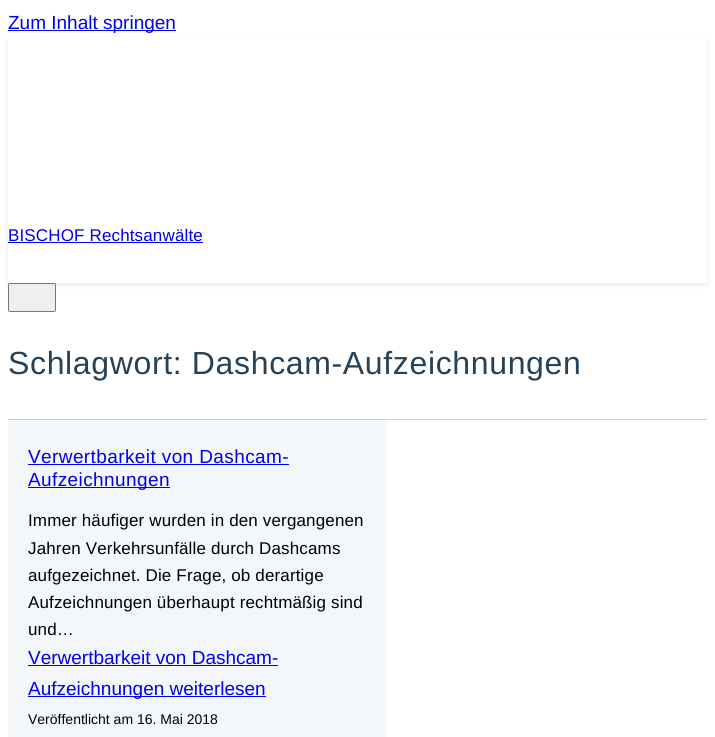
import math
import cairo


def write_spaced(ctx, x, y, s, letter, word):
	ctx.move_to(x, y)
	for ch in s:
		ctx.show_text(ch)
		ctx.rel_move_to(letter + word * (ch == ' '), 0)

def round_path(ctx, x, y, w, h, r):
	ctx.new_sub_path()
	for i, (u, v) in enumerate([(x + w - r, y + h - r), (x + r, y + h - r), (x + r, y + r), (x + w - r, y + r)]):
		ctx.arc(u, v, r, i * math.pi / 2, (i + 1) * math.pi / 2)
	ctx.close_path()

def blur_box(ctx, x, y, w, h, r, blur, alpha):
	ctx.push_group_with_content(cairo.CONTENT_ALPHA)
	ctx.set_operator(cairo.OPERATOR_SOURCE)
	for i in range(15, -16, -2):
		e = blur * i / 6
		if min(w, h) + 2 * e > 0:
			ctx.set_source_rgba(0, 0, 0, alpha * math.erfc((i - 1) / 8.5) / 2)
			round_path(ctx, x - e, y - e, w + 2 * e, h + 2 * e, max(0, min(r + e + blur * .6, min(w, h) / 2 + e)))
			ctx.fill()
	ctx.mask(ctx.pop_group())

def draw(ctx):
	ctx.set_source_rgb(1, 1, 1)
	ctx.paint()
	ctx.set_source_rgb(0, 0, 0.933)
	ctx.rectangle(8, 30, 168, 1)
	ctx.fill()
	ctx.save()
	ctx.set_fill_rule(cairo.FILL_RULE_EVEN_ODD)
	ctx.new_path()
	ctx.move_to(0, 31)
	ctx.line_to(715, 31)
	ctx.line_to(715, 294)
	ctx.line_to(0, 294)
	ctx.close_path()
	ctx.move_to(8, 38)
	ctx.line_to(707, 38)
	ctx.line_to(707, 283)
	ctx.line_to(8, 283)
	ctx.close_path()
	ctx.clip()
	ctx.set_source_rgb(0, 0, 0)
	blur_box(ctx, 8, 40, 699, 245, 0, 2.5, 0.1)
	ctx.restore()
	ctx.select_font_face('Liberation Sans')
	ctx.set_font_size(19)
	ctx.move_to(8, 29)
	ctx.show_text('Zum Inhalt springen')
	ctx.set_font_size(17)
	write_spaced(ctx, 8, 241, 'BISCHOF Rechtsanwälte', 0.15, 0)
	ctx.rectangle(8, 242, 195, 1)
	ctx.fill()
	ctx.set_source_rgb(0.937, 0.937, 0.937)
	round_path(ctx, 8.5, 283.5, 47, 28, 1.5)
	ctx.fill_preserve()
	ctx.set_source_rgb(0.463, 0.463, 0.463)
	ctx.set_line_width(1)
	ctx.stroke()
	ctx.set_source_rgb(0.765, 0.82, 0.863)
	ctx.rectangle(8, 419, 699, 1)
	ctx.fill()
	ctx.set_font_size(32)
	ctx.set_source_rgb(0.153, 0.259, 0.341)
	write_spaced(ctx, 8, 374, 'Schlagwort: Dashcam-Aufzeichnungen', 0.65, 0)
	ctx.set_source_rgb(0.953, 0.965, 0.973)
	ctx.rectangle(8, 420, 378, 317)
	ctx.fill()
	ctx.set_font_size(19)
	ctx.set_source_rgb(0, 0, 0.933)
	write_spaced(ctx, 28, 463, 'Verwertbarkeit von Dashcam-', 0.4, 0)
	ctx.rectangle(28, 464, 261, 1)
	ctx.fill()
	ctx.rectangle(28, 487, 142, 1)
	ctx.fill()
	write_spaced(ctx, 28, 486, 'Aufzeichnungen', 0.4, 0)
	ctx.set_font_size(17)
	ctx.set_source_rgb(0, 0, 0)
	for x, y, s in [
		(28, 526, 'Immer häufiger wurden in den vergangenen'),
		(28, 554, 'Jahren Verkehrsunfälle durch Dashcams'),
		(28, 581, 'aufgezeichnet. Die Frage, ob derartige'),
		(28, 608, 'Aufzeichnungen überhaupt rechtmäßig sind'),
		(28, 635, 'und…'),
	]:
		write_spaced(ctx, x, y, s, 0.15, 0)
	ctx.set_font_size(19)
	ctx.set_source_rgb(0, 0, 0.933)
	ctx.move_to(28, 664)
	ctx.show_text('Verwertbarkeit von Dashcam-')
	ctx.rectangle(28, 665, 250, 1)
	ctx.fill()
	ctx.rectangle(28, 696, 238, 1)
	ctx.fill()
	ctx.move_to(28, 695)
	ctx.show_text('Aufzeichnungen weiterlesen')
	ctx.set_font_size(14)
	ctx.set_source_rgb(0, 0, 0)
	ctx.move_to(28, 724)
	ctx.show_text('Veröffentlicht am 16. Mai 2018')


surface = cairo.ImageSurface(cairo.FORMAT_RGB24, 715, 737)
ctx = cairo.Context(surface)
options = cairo.FontOptions()
options.set_hint_metrics(cairo.HINT_METRICS_OFF)
options.set_hint_style(cairo.HINT_STYLE_NONE)
ctx.set_font_options(options)
ctx.set_miter_limit(4)
draw(ctx)
surface.write_to_png('image.png')
